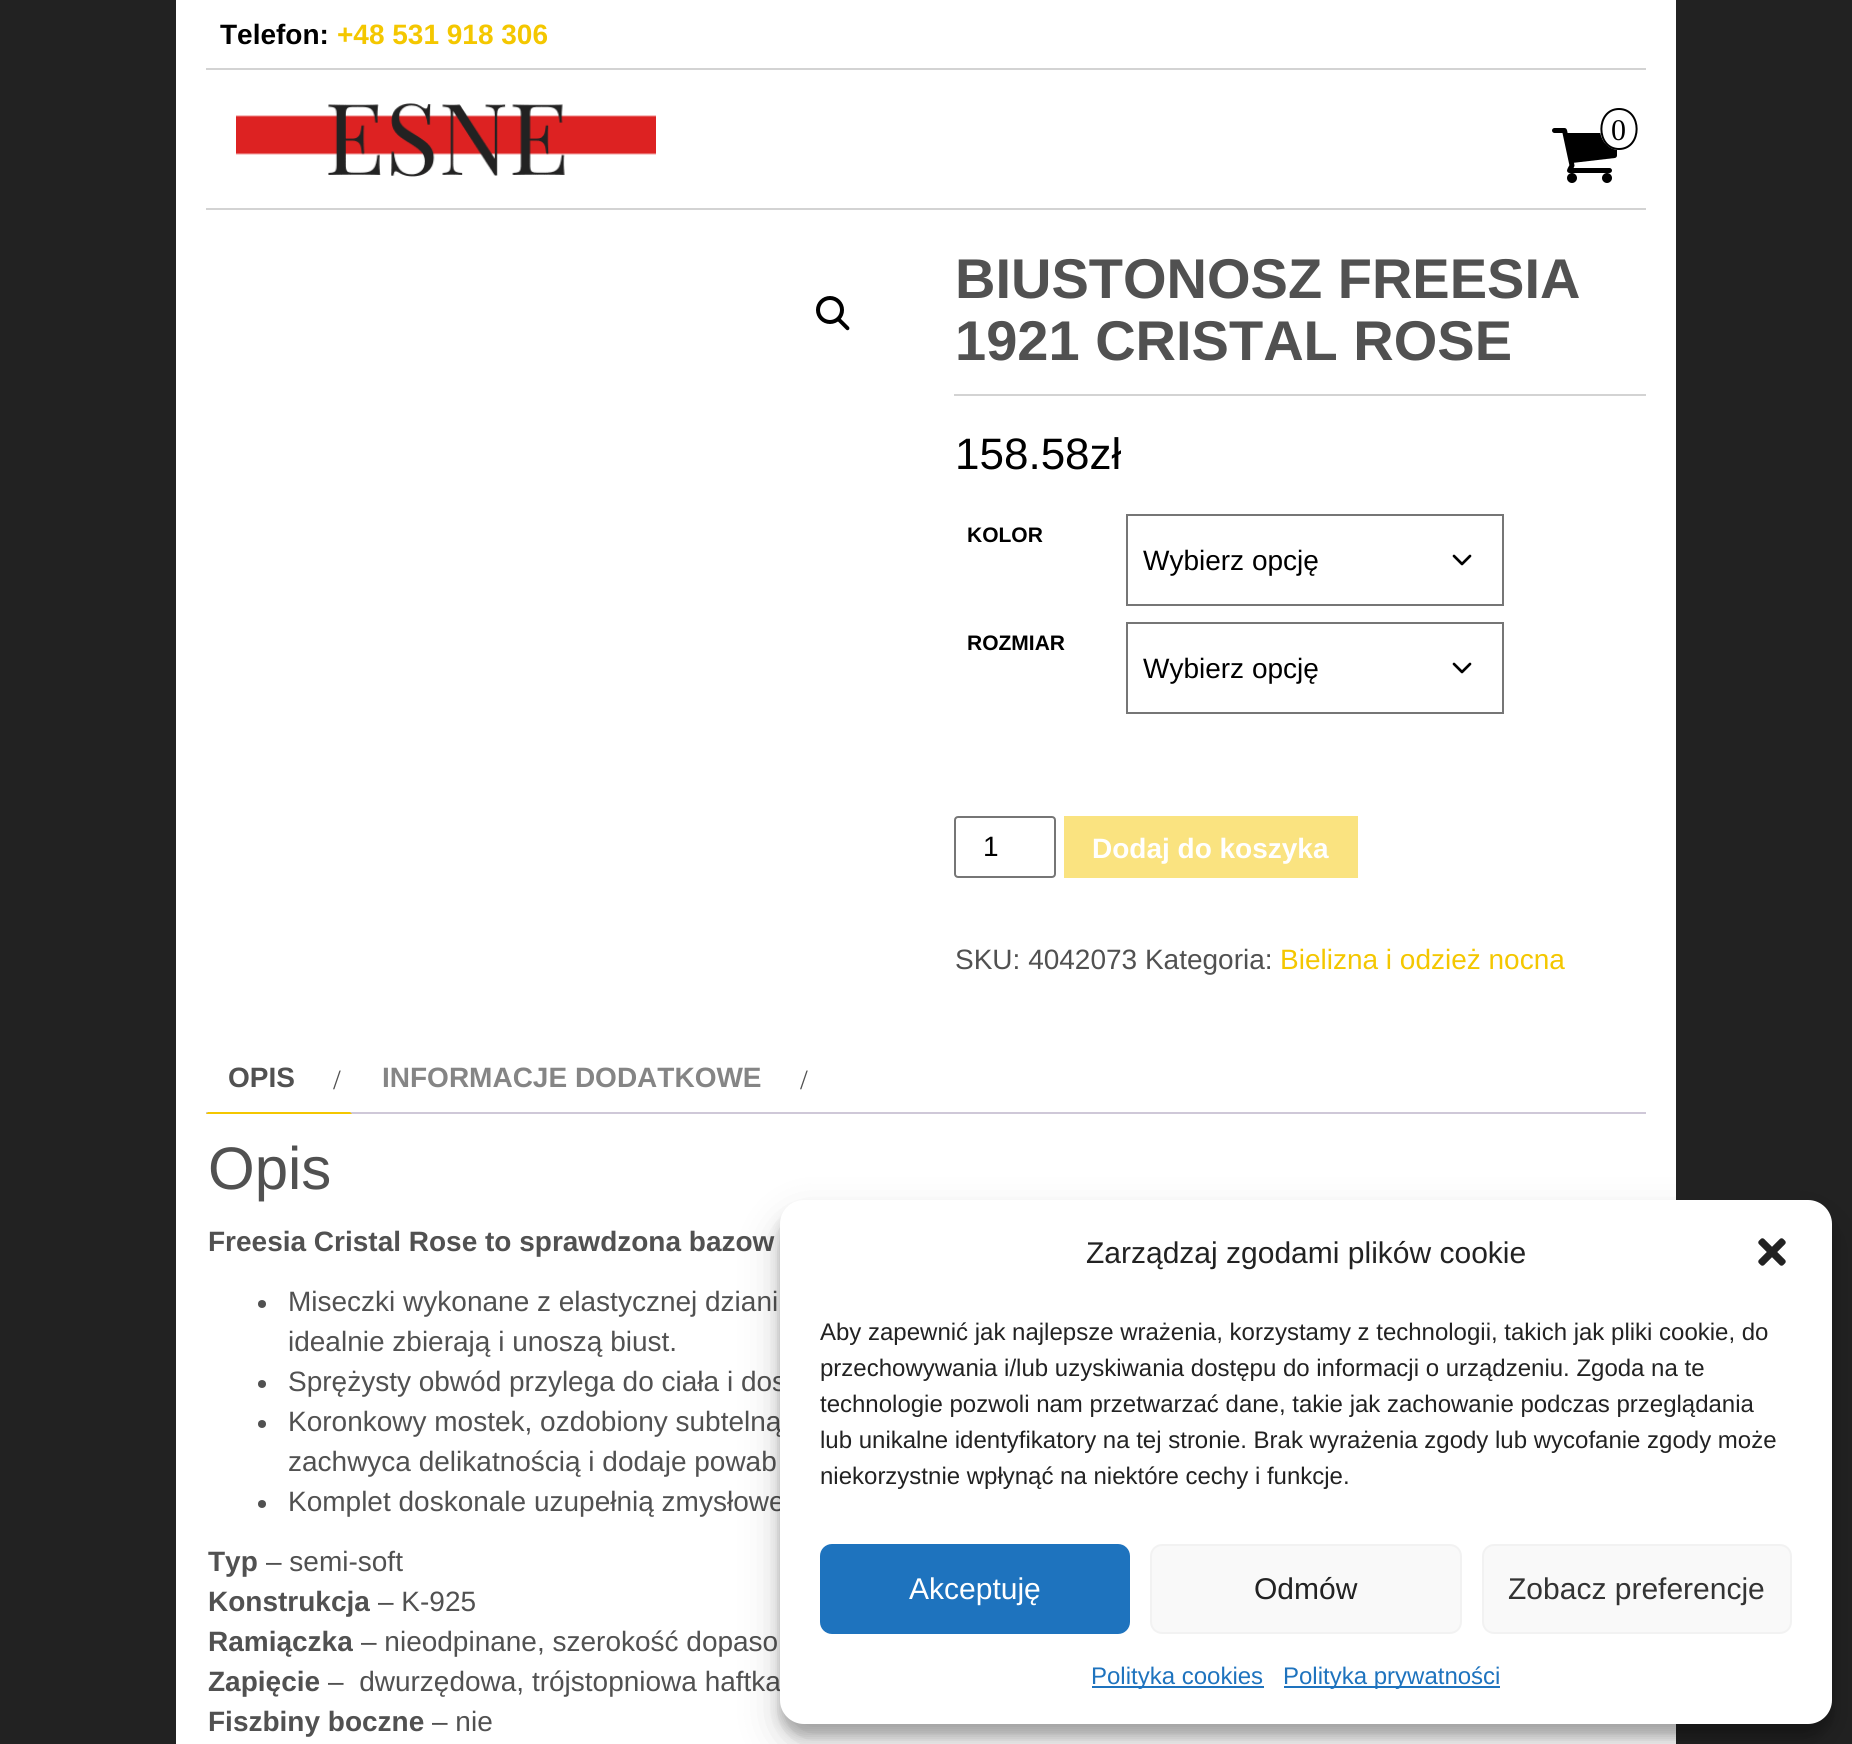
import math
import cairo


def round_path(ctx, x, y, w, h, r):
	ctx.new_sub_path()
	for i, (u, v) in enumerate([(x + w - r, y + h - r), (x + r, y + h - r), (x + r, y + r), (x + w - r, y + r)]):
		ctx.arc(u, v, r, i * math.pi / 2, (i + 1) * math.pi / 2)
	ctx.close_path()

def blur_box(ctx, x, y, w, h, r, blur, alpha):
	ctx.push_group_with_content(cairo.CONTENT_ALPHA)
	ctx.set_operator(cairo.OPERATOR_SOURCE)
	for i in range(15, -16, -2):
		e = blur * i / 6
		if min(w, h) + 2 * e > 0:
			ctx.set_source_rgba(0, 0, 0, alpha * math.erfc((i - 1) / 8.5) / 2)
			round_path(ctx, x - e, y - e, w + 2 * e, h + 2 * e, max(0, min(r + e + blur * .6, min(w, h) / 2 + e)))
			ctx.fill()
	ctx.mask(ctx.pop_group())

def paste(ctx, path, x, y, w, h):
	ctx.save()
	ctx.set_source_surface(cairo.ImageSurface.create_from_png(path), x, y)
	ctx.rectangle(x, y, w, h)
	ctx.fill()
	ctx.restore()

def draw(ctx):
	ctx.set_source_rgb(0.133, 0.133, 0.133)
	ctx.paint()
	ctx.set_source_rgb(1, 1, 1)
	ctx.rectangle(176, 0, 1500, 1744)
	ctx.fill()
	ctx.set_source_rgb(0.827, 0.827, 0.827)
	ctx.rectangle(206, 68, 1440, 2)
	ctx.fill()
	ctx.select_font_face('Liberation Sans', cairo.FONT_SLANT_NORMAL, cairo.FONT_WEIGHT_BOLD)
	ctx.set_font_size(28)
	ctx.set_source_rgb(0, 0, 0)
	ctx.move_to(220, 44)
	ctx.show_text('Telefon:')
	ctx.set_source_rgb(0.957, 0.78, 0)
	ctx.move_to(337, 44)
	ctx.show_text('+48 531 918 306')
	ctx.set_source_rgb(0.827, 0.827, 0.827)
	ctx.rectangle(206, 208, 1440, 2)
	ctx.fill()
	paste(ctx, 'media/1.png', 236, 103, 420, 74)
	paste(ctx, 'media/2.png', 1552, 128, 65, 55)
	ctx.set_source_rgb(1, 1, 1)
	ctx.new_path()
	ctx.move_to(1619, 108)
	ctx.curve_to(1629.5, 108, 1638, 117.5, 1638, 129)
	ctx.curve_to(1638, 140.5, 1629.5, 150, 1619, 150)
	ctx.curve_to(1608.5, 150, 1600, 140.5, 1600, 129)
	ctx.curve_to(1600, 117.5, 1608.5, 108, 1619, 108)
	ctx.close_path()
	ctx.fill()
	ctx.new_path()
	ctx.move_to(1619, 109)
	ctx.curve_to(1642.5, 109, 1642.5, 149, 1619, 149)
	ctx.curve_to(1595.5, 149, 1595.5, 109, 1619, 109)
	ctx.close_path()
	ctx.set_source_rgb(0, 0, 0)
	ctx.stroke()
	ctx.select_font_face('Liberation Serif')
	ctx.set_font_size(30)
	ctx.move_to(1611, 140)
	ctx.show_text('0')
	ctx.new_path()
	ctx.arc(830, 310, 12, 0, 2 * math.pi)
	ctx.set_line_width(4)
	ctx.stroke()
	ctx.new_path()
	ctx.move_to(837.5, 318.5)
	ctx.curve_to(838.5, 317.5, 839.5, 317.5, 840.5, 318.5)
	ctx.line_to(849, 327)
	ctx.curve_to(849.5, 327.5, 849.5, 329, 849, 329.5)
	ctx.curve_to(848, 330.5, 847, 330.5, 846, 329.5)
	ctx.line_to(837.5, 321)
	ctx.curve_to(836.5, 320.5, 836.5, 319, 837.5, 318.5)
	ctx.close_path()
	ctx.fill()
	ctx.set_source_rgb(0.827, 0.827, 0.827)
	ctx.rectangle(954, 394, 692, 2)
	ctx.fill()
	ctx.select_font_face('Liberation Sans', cairo.FONT_SLANT_NORMAL, cairo.FONT_WEIGHT_BOLD)
	ctx.set_font_size(56)
	ctx.set_source_rgb(0.318, 0.318, 0.318)
	ctx.move_to(955, 298)
	ctx.show_text('BIUSTONOSZ FREESIA')
	ctx.move_to(955, 360)
	ctx.show_text('1921 CRISTAL ROSE')
	ctx.select_font_face('Liberation Sans')
	ctx.set_font_size(44)
	ctx.set_source_rgb(0, 0, 0)
	ctx.move_to(955, 469)
	ctx.show_text('158.58zł')
	ctx.select_font_face('Liberation Sans', cairo.FONT_SLANT_NORMAL, cairo.FONT_WEIGHT_BOLD)
	ctx.set_font_size(21)
	ctx.move_to(967, 542)
	ctx.show_text('KOLOR')
	ctx.new_path()
	ctx.move_to(1454, 556)
	ctx.line_to(1462, 564)
	ctx.line_to(1470, 556)
	ctx.set_line_width(2.7)
	ctx.set_line_cap(cairo.LINE_CAP_ROUND)
	ctx.set_line_join(cairo.LINE_JOIN_ROUND)
	ctx.stroke()
	ctx.rectangle(1127, 515, 376, 90)
	ctx.set_source_rgb(0.463, 0.463, 0.463)
	ctx.set_line_width(2)
	ctx.set_line_cap(cairo.LINE_CAP_BUTT)
	ctx.set_line_join(cairo.LINE_JOIN_MITER)
	ctx.stroke()
	ctx.select_font_face('Liberation Sans')
	ctx.set_font_size(28)
	ctx.set_source_rgb(0, 0, 0)
	ctx.move_to(1143, 570)
	ctx.show_text('Wybierz opcję')
	ctx.select_font_face('Liberation Sans', cairo.FONT_SLANT_NORMAL, cairo.FONT_WEIGHT_BOLD)
	ctx.set_font_size(21)
	ctx.move_to(967, 650)
	ctx.show_text('ROZMIAR')
	ctx.new_path()
	ctx.move_to(1454, 664)
	ctx.line_to(1462, 672)
	ctx.line_to(1470, 664)
	ctx.set_line_width(2.7)
	ctx.set_line_cap(cairo.LINE_CAP_ROUND)
	ctx.set_line_join(cairo.LINE_JOIN_ROUND)
	ctx.stroke()
	ctx.rectangle(1127, 623, 376, 90)
	ctx.set_source_rgb(0.463, 0.463, 0.463)
	ctx.set_line_width(2)
	ctx.set_line_cap(cairo.LINE_CAP_BUTT)
	ctx.set_line_join(cairo.LINE_JOIN_MITER)
	ctx.stroke()
	ctx.select_font_face('Liberation Sans')
	ctx.set_font_size(28)
	ctx.set_source_rgb(0, 0, 0)
	ctx.move_to(1143, 678)
	ctx.show_text('Wybierz opcję')
	round_path(ctx, 955, 817, 100, 60, 3)
	ctx.set_source_rgb(0.463, 0.463, 0.463)
	ctx.stroke()
	ctx.set_source_rgb(0, 0, 0)
	ctx.move_to(983, 856)
	ctx.show_text('1')
	ctx.set_source_rgb(0.98, 0.89, 0.502)
	ctx.rectangle(1064, 816, 294, 62)
	ctx.fill()
	ctx.select_font_face('Liberation Sans', cairo.FONT_SLANT_NORMAL, cairo.FONT_WEIGHT_BOLD)
	ctx.set_source_rgb(1, 1, 1)
	ctx.move_to(1092, 858)
	ctx.show_text('Dodaj do koszyka')
	ctx.select_font_face('Liberation Sans')
	ctx.set_source_rgb(0.318, 0.318, 0.318)
	ctx.move_to(955, 969)
	ctx.show_text('SKU: 4042073 Kategoria:')
	ctx.set_source_rgb(0.957, 0.78, 0)
	ctx.move_to(1280, 969)
	ctx.show_text('Bielizna i odzież nocna')
	ctx.set_source_rgb(0.812, 0.784, 0.847)
	ctx.rectangle(206, 1112, 1440, 2)
	ctx.fill()
	ctx.set_source_rgb(0.957, 0.78, 0)
	ctx.new_path()
	ctx.move_to(352, 1114)
	ctx.line_to(206, 1114)
	ctx.line_to(208, 1112)
	ctx.line_to(350, 1112)
	ctx.close_path()
	ctx.fill()
	ctx.select_font_face('Liberation Sans', cairo.FONT_SLANT_NORMAL, cairo.FONT_WEIGHT_BOLD)
	ctx.set_source_rgb(0.318, 0.318, 0.318)
	ctx.move_to(228, 1087)
	ctx.show_text('OPIS')
	ctx.select_font_face('Liberation Serif')
	ctx.move_to(333, 1089)
	ctx.show_text('/')
	ctx.select_font_face('Liberation Sans', cairo.FONT_SLANT_NORMAL, cairo.FONT_WEIGHT_BOLD)
	ctx.set_source_rgb(0.522, 0.522, 0.522)
	ctx.move_to(382, 1087)
	ctx.show_text('INFORMACJE DODATKOWE')
	ctx.select_font_face('Liberation Serif')
	ctx.set_source_rgb(0.318, 0.318, 0.318)
	ctx.move_to(800, 1089)
	ctx.show_text('/')
	ctx.select_font_face('Liberation Sans')
	ctx.set_font_size(60)
	ctx.move_to(208, 1189)
	ctx.show_text('Opis')
	ctx.select_font_face('Liberation Sans', cairo.FONT_SLANT_NORMAL, cairo.FONT_WEIGHT_BOLD)
	ctx.set_font_size(28)
	ctx.move_to(208, 1251)
	ctx.show_text('Freesia Cristal Rose to sprawdzona bazow')
	ctx.new_path()
	ctx.arc(262, 1304, 4, 0, 2 * math.pi)
	ctx.fill()
	ctx.select_font_face('Liberation Sans')
	ctx.move_to(288, 1311)
	ctx.show_text('Miseczki wykonane z elastycznej dziani')
	ctx.move_to(288, 1351)
	ctx.show_text('idealnie zbierają i unoszą biust.')
	ctx.new_path()
	ctx.arc(262, 1384, 4, 0, 2 * math.pi)
	ctx.fill()
	ctx.move_to(288, 1391)
	ctx.show_text('Sprężysty obwód przylega do ciała i dos')
	ctx.new_path()
	ctx.arc(262, 1424, 4, 0, 2 * math.pi)
	ctx.fill()
	ctx.move_to(288, 1431)
	ctx.show_text('Koronkowy mostek, ozdobiony subtelną')
	ctx.move_to(288, 1471)
	ctx.show_text('zachwyca delikatnością i dodaje powab')
	ctx.new_path()
	ctx.arc(262, 1504, 4, 0, 2 * math.pi)
	ctx.fill()
	ctx.move_to(288, 1511)
	ctx.show_text('Komplet doskonale uzupełnią zmysłowe')
	ctx.select_font_face('Liberation Sans', cairo.FONT_SLANT_NORMAL, cairo.FONT_WEIGHT_BOLD)
	ctx.move_to(208, 1571)
	ctx.show_text('Typ')
	ctx.select_font_face('Liberation Sans')
	ctx.move_to(266, 1571)
	ctx.show_text('– semi-soft')
	ctx.select_font_face('Liberation Sans', cairo.FONT_SLANT_NORMAL, cairo.FONT_WEIGHT_BOLD)
	ctx.move_to(208, 1611)
	ctx.show_text('Konstrukcja')
	ctx.select_font_face('Liberation Sans')
	ctx.move_to(378, 1611)
	ctx.show_text('– K-925')
	ctx.select_font_face('Liberation Sans', cairo.FONT_SLANT_NORMAL, cairo.FONT_WEIGHT_BOLD)
	ctx.move_to(208, 1651)
	ctx.show_text('Ramiączka')
	ctx.select_font_face('Liberation Sans')
	ctx.move_to(361, 1651)
	ctx.show_text('– nieodpinane, szerokość dopaso')
	ctx.select_font_face('Liberation Sans', cairo.FONT_SLANT_NORMAL, cairo.FONT_WEIGHT_BOLD)
	ctx.move_to(208, 1691)
	ctx.show_text('Zapięcie')
	ctx.select_font_face('Liberation Sans')
	ctx.move_to(328, 1691)
	ctx.show_text('–  dwurzędowa, trójstopniowa haftka')
	ctx.select_font_face('Liberation Sans', cairo.FONT_SLANT_NORMAL, cairo.FONT_WEIGHT_BOLD)
	ctx.move_to(208, 1731)
	ctx.show_text('Fiszbiny boczne')
	ctx.select_font_face('Liberation Sans')
	ctx.move_to(432, 1731)
	ctx.show_text('– nie')
	ctx.set_source_rgb(0, 0, 0)
	blur_box(ctx, 780, 1212, 1052, 524, 24, 6, 0.23)
	blur_box(ctx, 780, 1220, 1052, 524, 24, 20, 0.19)
	ctx.set_source_rgb(1, 1, 1)
	round_path(ctx, 780, 1200, 1052, 524, 24)
	ctx.fill()
	ctx.set_font_size(30)
	ctx.set_source_rgb(0.133, 0.133, 0.133)
	ctx.move_to(1086, 1263)
	ctx.show_text('Zarządzaj zgodami plików cookie')
	paste(ctx, 'media/3.png', 1758, 1238, 28, 28)
	ctx.set_font_size(24)
	for x, y, s in [
		(820, 1340, 'Aby zapewnić jak najlepsze wrażenia, korzystamy z technologii, takich jak pliki cookie, do'),
		(820, 1376, 'przechowywania i/lub uzyskiwania dostępu do informacji o urządzeniu. Zgoda na te'),
		(820, 1412, 'technologie pozwoli nam przetwarzać dane, takie jak zachowanie podczas przeglądania'),
		(820, 1448, 'lub unikalne identyfikatory na tej stronie. Brak wyrażenia zgody lub wycofanie zgody może'),
		(820, 1484, 'niekorzystnie wpłynąć na niektóre cechy i funkcje.'),
	]:
		ctx.move_to(x, y)
		ctx.show_text(s)
	ctx.set_source_rgb(0.118, 0.451, 0.745)
	round_path(ctx, 821, 1545, 308, 88, 11)
	ctx.fill_preserve()
	ctx.stroke()
	ctx.set_font_size(30)
	ctx.set_source_rgb(1, 1, 1)
	ctx.move_to(909, 1599)
	ctx.show_text('Akceptuję')
	ctx.set_source_rgb(0.976, 0.976, 0.976)
	round_path(ctx, 1151, 1545, 310, 88, 11)
	ctx.fill_preserve()
	ctx.set_source_rgb(0.949, 0.949, 0.949)
	ctx.stroke()
	ctx.set_source_rgb(0.133, 0.133, 0.133)
	ctx.move_to(1254, 1599)
	ctx.show_text('Odmów')
	ctx.set_source_rgb(0.976, 0.976, 0.976)
	round_path(ctx, 1483, 1545, 308, 88, 11)
	ctx.fill_preserve()
	ctx.set_source_rgb(0.949, 0.949, 0.949)
	ctx.stroke()
	ctx.set_source_rgb(0.2, 0.2, 0.2)
	ctx.move_to(1508, 1599)
	ctx.show_text('Zobacz preferencje')
	ctx.set_source_rgb(0.118, 0.451, 0.745)
	ctx.rectangle(1092, 1686, 172, 2)
	ctx.fill()
	ctx.set_font_size(24)
	ctx.move_to(1091, 1684)
	ctx.show_text('Polityka cookies')
	ctx.rectangle(1284, 1686, 216, 2)
	ctx.fill()
	ctx.move_to(1283, 1684)
	ctx.show_text('Polityka prywatności')


surface = cairo.ImageSurface(cairo.FORMAT_RGB24, 1852, 1744)
ctx = cairo.Context(surface)
options = cairo.FontOptions()
options.set_hint_metrics(cairo.HINT_METRICS_OFF)
options.set_hint_style(cairo.HINT_STYLE_NONE)
ctx.set_font_options(options)
ctx.set_miter_limit(4)
draw(ctx)
surface.write_to_png('image.png')
